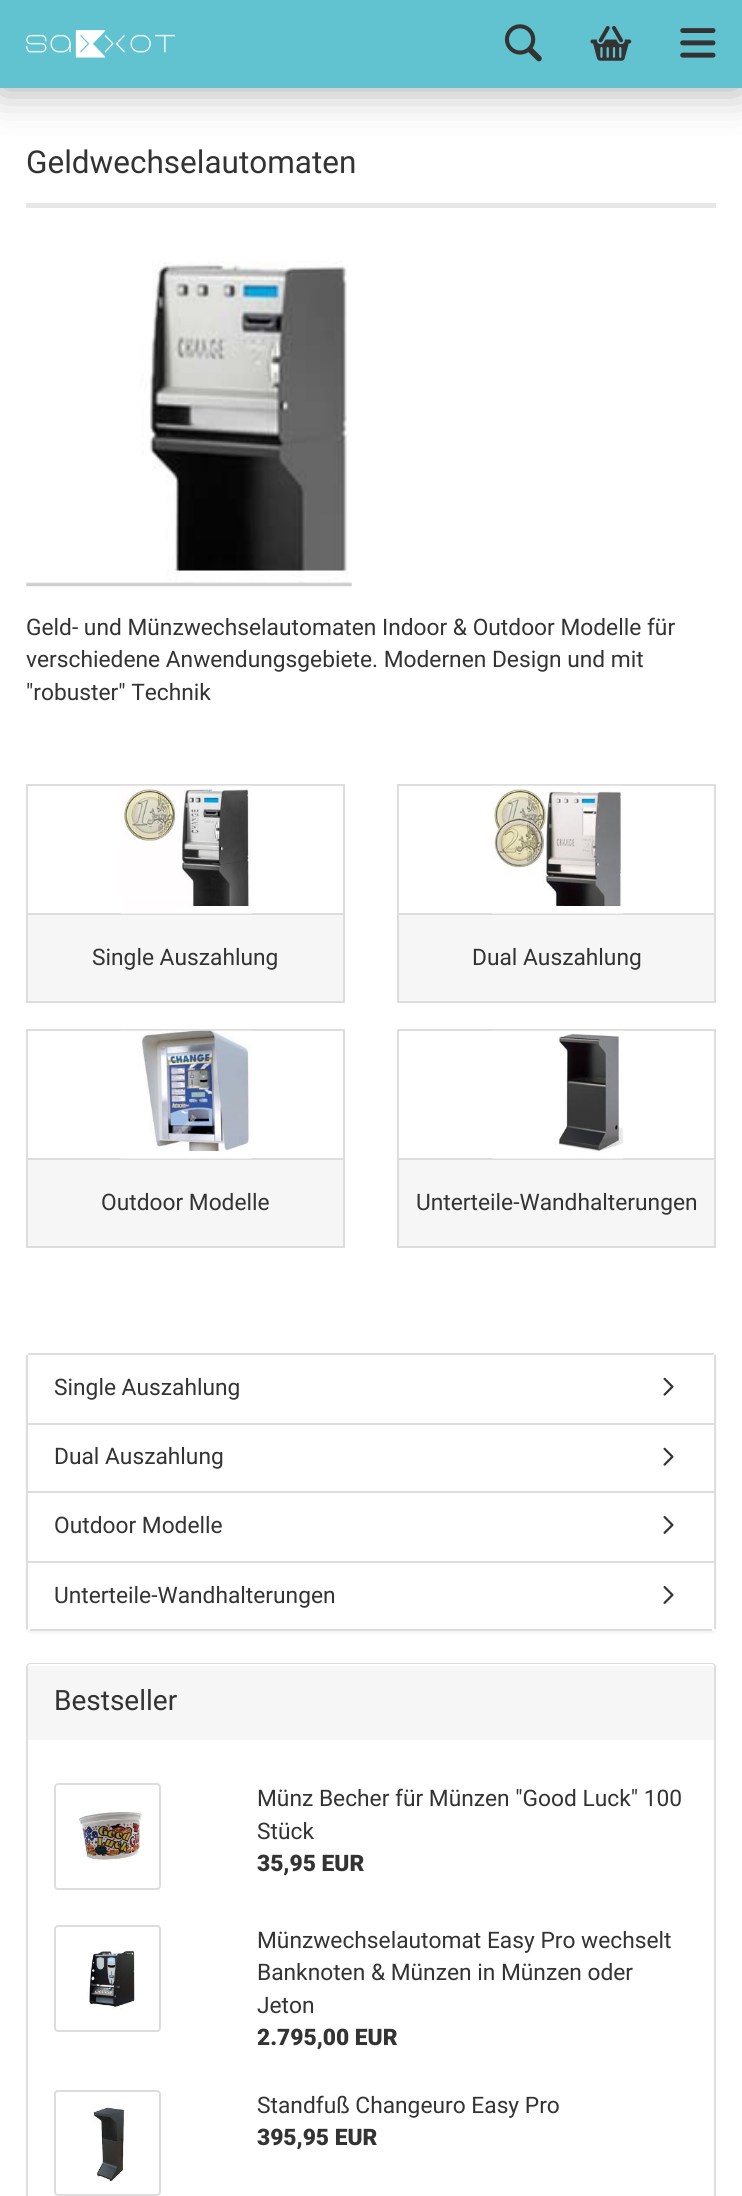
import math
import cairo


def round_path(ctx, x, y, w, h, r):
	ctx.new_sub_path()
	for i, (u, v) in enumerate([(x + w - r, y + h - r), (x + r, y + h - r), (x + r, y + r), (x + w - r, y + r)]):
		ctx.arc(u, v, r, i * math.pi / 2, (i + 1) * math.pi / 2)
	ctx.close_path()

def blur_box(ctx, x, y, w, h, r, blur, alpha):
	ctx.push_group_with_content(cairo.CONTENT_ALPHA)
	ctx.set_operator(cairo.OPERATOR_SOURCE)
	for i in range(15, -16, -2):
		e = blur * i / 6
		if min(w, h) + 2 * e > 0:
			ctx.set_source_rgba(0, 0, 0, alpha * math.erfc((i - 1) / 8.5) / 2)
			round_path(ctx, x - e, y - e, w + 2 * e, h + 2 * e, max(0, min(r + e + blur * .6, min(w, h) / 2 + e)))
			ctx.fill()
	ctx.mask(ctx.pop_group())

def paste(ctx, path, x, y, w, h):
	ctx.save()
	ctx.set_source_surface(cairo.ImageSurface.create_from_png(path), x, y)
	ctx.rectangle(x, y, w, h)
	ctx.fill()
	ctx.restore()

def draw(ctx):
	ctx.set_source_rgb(1, 1, 1)
	ctx.paint()
	ctx.set_source_rgb(0, 0, 0)
	blur_box(ctx, 0, 0, 742, 88, 0, 22, 0.35)
	ctx.set_source_rgb(0.38, 0.761, 0.816)
	ctx.rectangle(0, 0, 742, 88)
	ctx.fill()
	paste(ctx, 'media/1.png', 26, 30, 149, 28)
	paste(ctx, 'media/2.png', 504, 24, 38, 38)
	paste(ctx, 'media/3.png', 590, 26, 42, 35)
	paste(ctx, 'media/4.png', 680, 28, 36, 30)
	ctx.set_source_rgb(0.906, 0.906, 0.906)
	ctx.rectangle(26, 203, 690, 5)
	ctx.fill()
	ctx.select_font_face('Roboto')
	ctx.set_font_size(31.5)
	ctx.set_source_rgb(0.2, 0.2, 0.2)
	ctx.move_to(26, 173)
	ctx.show_text('Geldwechselautomaten')
	paste(ctx, 'media/5.png', 26, 261, 326, 326)
	ctx.set_font_size(22.75)
	for x, y, s in [
		(26, 635, 'Geld- und Münzwechselautomaten Indoor & Outdoor Modelle für'),
		(26, 667, 'verschiedene Anwendungsgebiete. Modernen Design und mit'),
		(26, 700, '"robuster" Technik'),
	]:
		ctx.move_to(x, y)
		ctx.show_text(s)
	ctx.rectangle(27, 785, 317, 129)
	ctx.set_source_rgb(0.867, 0.867, 0.867)
	ctx.stroke()
	paste(ctx, 'media/6.png', 120, 785, 132, 129)
	ctx.set_source_rgb(0.961, 0.961, 0.961)
	ctx.rectangle(28, 915, 315, 86)
	ctx.fill()
	ctx.set_source_rgb(0.867, 0.867, 0.867)
	ctx.rectangle(343, 915, 2, 88)
	ctx.rectangle(26, 1001, 319, 2)
	ctx.rectangle(26, 915, 2, 88)
	ctx.fill()
	ctx.set_source_rgb(0.2, 0.2, 0.2)
	ctx.move_to(92, 965)
	ctx.show_text('Single Auszahlung')
	ctx.rectangle(398, 785, 317, 129)
	ctx.set_source_rgb(0.867, 0.867, 0.867)
	ctx.stroke()
	paste(ctx, 'media/7.png', 491, 785, 132, 129)
	ctx.set_source_rgb(0.961, 0.961, 0.961)
	ctx.rectangle(399, 915, 315, 86)
	ctx.fill()
	ctx.set_source_rgb(0.867, 0.867, 0.867)
	ctx.rectangle(714, 915, 2, 88)
	ctx.rectangle(397, 1001, 319, 2)
	ctx.rectangle(397, 915, 2, 88)
	ctx.fill()
	ctx.set_source_rgb(0.2, 0.2, 0.2)
	ctx.move_to(472, 965)
	ctx.show_text('Dual Auszahlung')
	ctx.rectangle(27, 1030, 317, 129)
	ctx.set_source_rgb(0.867, 0.867, 0.867)
	ctx.stroke()
	paste(ctx, 'media/8.png', 120, 1030, 132, 129)
	ctx.set_source_rgb(0.961, 0.961, 0.961)
	ctx.rectangle(28, 1160, 315, 86)
	ctx.fill()
	ctx.set_source_rgb(0.867, 0.867, 0.867)
	ctx.rectangle(343, 1160, 2, 88)
	ctx.rectangle(26, 1246, 319, 2)
	ctx.rectangle(26, 1160, 2, 88)
	ctx.fill()
	ctx.set_source_rgb(0.2, 0.2, 0.2)
	ctx.move_to(101, 1210)
	ctx.show_text('Outdoor Modelle')
	ctx.rectangle(398, 1030, 317, 129)
	ctx.set_source_rgb(0.867, 0.867, 0.867)
	ctx.stroke()
	paste(ctx, 'media/9.png', 491, 1030, 132, 129)
	ctx.set_source_rgb(0.961, 0.961, 0.961)
	ctx.rectangle(399, 1160, 315, 86)
	ctx.fill()
	ctx.set_source_rgb(0.867, 0.867, 0.867)
	ctx.rectangle(714, 1160, 2, 88)
	ctx.rectangle(397, 1246, 319, 2)
	ctx.rectangle(397, 1160, 2, 88)
	ctx.fill()
	ctx.set_source_rgb(0.2, 0.2, 0.2)
	ctx.move_to(416, 1210)
	ctx.show_text('Unterteile-Wandhalterungen')
	ctx.set_source_rgb(0, 0, 0)
	blur_box(ctx, 26, 1355, 690, 278, 4, 1, 0.05)
	ctx.set_source_rgb(1, 1, 1)
	round_path(ctx, 26, 1353, 690, 278, 4)
	ctx.fill()
	ctx.set_source_rgb(0.867, 0.867, 0.867)
	ctx.rectangle(28, 1353, 686, 2)
	ctx.rectangle(714, 1355, 2, 274)
	ctx.rectangle(26, 1355, 2, 274)
	ctx.rectangle(28, 1423, 686, 2)
	ctx.fill()
	ctx.set_source_rgb(0.2, 0.2, 0.2)
	ctx.move_to(54, 1395)
	ctx.show_text('Single Auszahlung')
	paste(ctx, 'media/10.png', 663, 1377, 11, 19)
	ctx.set_source_rgb(0.867, 0.867, 0.867)
	ctx.rectangle(28, 1491, 686, 2)
	ctx.fill()
	ctx.set_source_rgb(0.2, 0.2, 0.2)
	ctx.move_to(54, 1464)
	ctx.show_text('Dual Auszahlung')
	paste(ctx, 'media/10.png', 663, 1447, 11, 19)
	ctx.set_source_rgb(0.867, 0.867, 0.867)
	ctx.rectangle(28, 1561, 686, 2)
	ctx.fill()
	ctx.set_source_rgb(0.2, 0.2, 0.2)
	ctx.move_to(54, 1533)
	ctx.show_text('Outdoor Modelle')
	paste(ctx, 'media/11.png', 663, 1516, 11, 18)
	ctx.set_source_rgb(0.867, 0.867, 0.867)
	ctx.rectangle(30, 1629, 682, 2)
	ctx.fill()
	ctx.set_source_rgb(0.2, 0.2, 0.2)
	ctx.move_to(54, 1603)
	ctx.show_text('Unterteile-Wandhalterungen')
	paste(ctx, 'media/11.png', 663, 1586, 11, 18)
	round_path(ctx, 27, 1664, 688, 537, 3)
	ctx.set_source_rgb(0.867, 0.867, 0.867)
	ctx.stroke()
	ctx.set_source_rgb(0.961, 0.961, 0.961)
	ctx.new_path()
	ctx.move_to(30, 1664)
	ctx.line_to(712, 1664)
	ctx.curve_to(713, 1664, 714, 1665, 714, 1666)
	ctx.line_to(714, 1740)
	ctx.line_to(28, 1740)
	ctx.line_to(28, 1666)
	ctx.curve_to(28, 1665, 29, 1664, 30, 1664)
	ctx.close_path()
	ctx.fill()
	ctx.set_source_rgb(1, 1, 1)
	ctx.new_path()
	ctx.move_to(30, 1666)
	ctx.line_to(712, 1666)
	ctx.curve_to(713, 1666, 714, 1667, 714, 1668)
	ctx.line_to(714, 1665)
	ctx.line_to(712, 1664)
	ctx.line_to(30, 1664)
	ctx.curve_to(28, 1664, 28, 1666, 28, 1668)
	ctx.curve_to(28, 1667, 29, 1666, 30, 1666)
	ctx.close_path()
	ctx.fill()
	ctx.set_font_size(28)
	ctx.set_source_rgb(0.2, 0.2, 0.2)
	ctx.move_to(54, 1710)
	ctx.show_text('Bestseller')
	round_path(ctx, 55, 1784, 105, 105, 3)
	ctx.set_source_rgb(0.867, 0.867, 0.867)
	ctx.stroke()
	paste(ctx, 'media/12.png', 78, 1811, 64, 50)
	ctx.set_font_size(22.75)
	ctx.set_source_rgb(0.2, 0.2, 0.2)
	ctx.move_to(257, 1806)
	ctx.show_text('Münz Becher für Münzen "Good Luck" 100')
	ctx.move_to(257, 1839)
	ctx.show_text('Stück')
	ctx.select_font_face('Roboto Black')
	ctx.move_to(257, 1871)
	ctx.show_text('35,95 EUR')
	round_path(ctx, 55, 1926, 105, 105, 3)
	ctx.set_source_rgb(0.867, 0.867, 0.867)
	ctx.stroke()
	paste(ctx, 'media/13.png', 87, 1948, 49, 62)
	ctx.select_font_face('Roboto')
	ctx.set_source_rgb(0.2, 0.2, 0.2)
	for x, y, s in [
		(257, 1948, 'Münzwechselautomat Easy Pro wechselt'),
		(257, 1980, 'Banknoten & Münzen in Münzen oder'),
		(257, 2013, 'Jeton'),
	]:
		ctx.move_to(x, y)
		ctx.show_text(s)
	ctx.select_font_face('Roboto Black')
	ctx.move_to(257, 2045)
	ctx.show_text('2.795,00 EUR')
	round_path(ctx, 55, 2091, 105, 104, 3)
	ctx.set_source_rgb(0.867, 0.867, 0.867)
	ctx.stroke()
	paste(ctx, 'media/14.png', 91, 2105, 37, 77)
	ctx.select_font_face('Roboto')
	ctx.set_source_rgb(0.2, 0.2, 0.2)
	ctx.move_to(257, 2113)
	ctx.show_text('Standfuß Changeuro Easy Pro')
	ctx.select_font_face('Roboto Black')
	ctx.move_to(257, 2145)
	ctx.show_text('395,95 EUR')


surface = cairo.ImageSurface(cairo.FORMAT_RGB24, 742, 2196)
ctx = cairo.Context(surface)
options = cairo.FontOptions()
options.set_hint_metrics(cairo.HINT_METRICS_OFF)
options.set_hint_style(cairo.HINT_STYLE_NONE)
ctx.set_font_options(options)
ctx.set_miter_limit(4)
draw(ctx)
surface.write_to_png('image.png')
